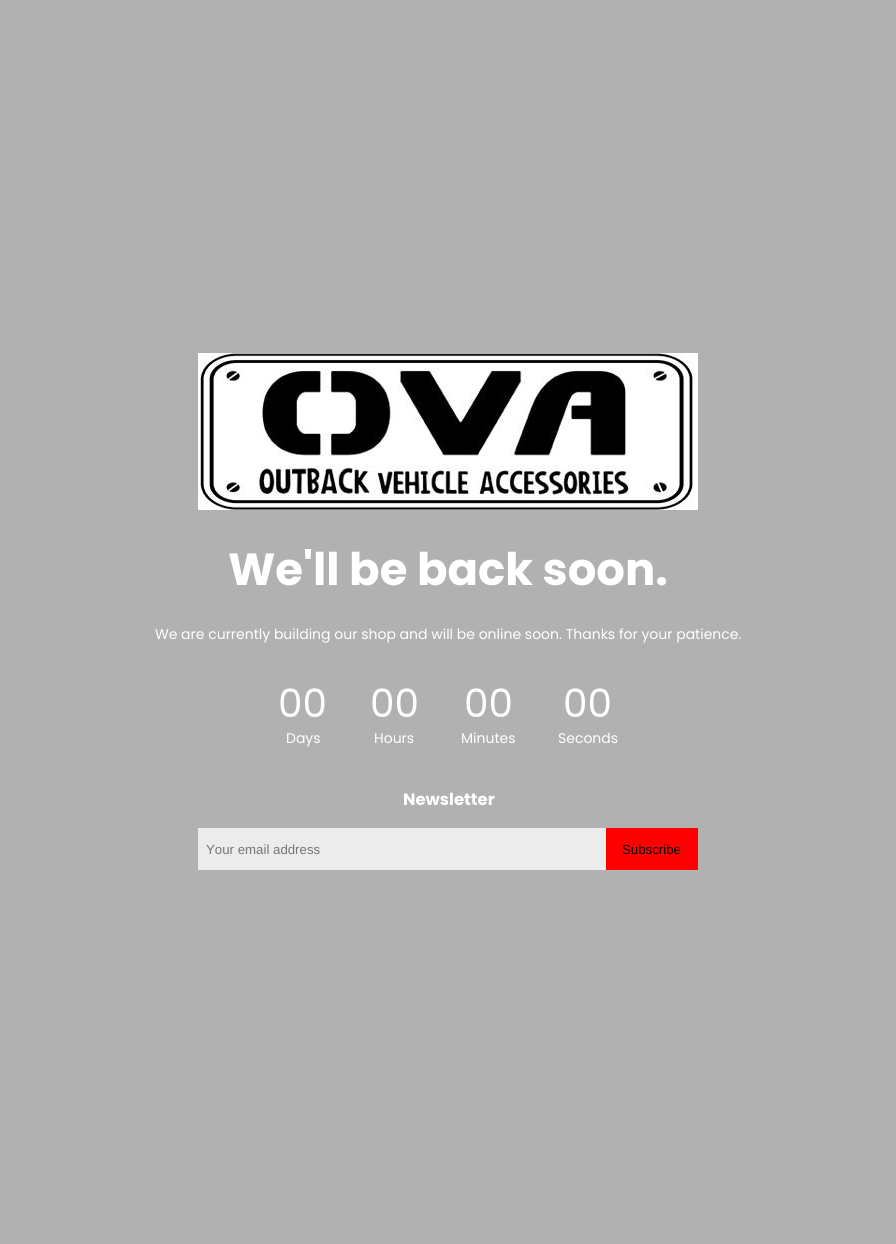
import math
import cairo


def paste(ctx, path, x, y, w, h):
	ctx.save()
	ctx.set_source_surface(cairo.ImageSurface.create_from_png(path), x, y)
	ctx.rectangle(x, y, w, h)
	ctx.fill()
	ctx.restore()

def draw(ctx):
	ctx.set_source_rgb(0.694, 0.694, 0.694)
	ctx.paint()
	paste(ctx, 'media/1.png', 198, 353, 500, 157)
	ctx.select_font_face('Poppins', cairo.FONT_SLANT_NORMAL, cairo.FONT_WEIGHT_BOLD)
	ctx.set_font_size(45)
	ctx.set_source_rgb(1, 1, 1)
	ctx.move_to(228, 585)
	ctx.show_text('We\'ll be back soon.')
	ctx.select_font_face('Poppins')
	ctx.set_font_size(14)
	ctx.move_to(155, 639)
	ctx.show_text('We are currently building our shop and will be online soon. Thanks for your patience.')
	ctx.set_font_size(39)
	ctx.move_to(278, 717)
	ctx.show_text('00')
	ctx.set_font_size(14)
	ctx.move_to(286, 743)
	ctx.show_text('Days')
	ctx.set_font_size(39)
	ctx.move_to(370, 717)
	ctx.show_text('00')
	ctx.set_font_size(14)
	ctx.move_to(374, 743)
	ctx.show_text('Hours')
	ctx.set_font_size(39)
	ctx.move_to(464, 717)
	ctx.show_text('00')
	ctx.set_font_size(14)
	ctx.move_to(461, 743)
	ctx.show_text('Minutes')
	ctx.set_font_size(39)
	ctx.move_to(563, 717)
	ctx.show_text('00')
	ctx.set_font_size(14)
	ctx.move_to(558, 743)
	ctx.show_text('Seconds')
	ctx.select_font_face('Poppins', cairo.FONT_SLANT_NORMAL, cairo.FONT_WEIGHT_BOLD)
	ctx.set_font_size(16.5)
	ctx.move_to(403, 805)
	ctx.show_text('Newsletter')
	ctx.set_source_rgb(0.922, 0.922, 0.922)
	ctx.rectangle(198, 828, 408, 42)
	ctx.fill()
	ctx.select_font_face('Liberation Sans')
	ctx.set_font_size(13.25)
	ctx.set_source_rgb(0.459, 0.459, 0.459)
	ctx.move_to(206, 854)
	ctx.show_text('Your email address')
	ctx.set_source_rgb(1, 0, 0)
	ctx.rectangle(606, 828, 92, 42)
	ctx.fill()
	ctx.set_source_rgb(0, 0, 0)
	ctx.move_to(622, 854)
	ctx.show_text('Subscribe')


surface = cairo.ImageSurface(cairo.FORMAT_RGB24, 896, 1244)
ctx = cairo.Context(surface)
options = cairo.FontOptions()
options.set_hint_metrics(cairo.HINT_METRICS_OFF)
options.set_hint_style(cairo.HINT_STYLE_NONE)
ctx.set_font_options(options)
ctx.set_miter_limit(4)
draw(ctx)
surface.write_to_png('image.png')
